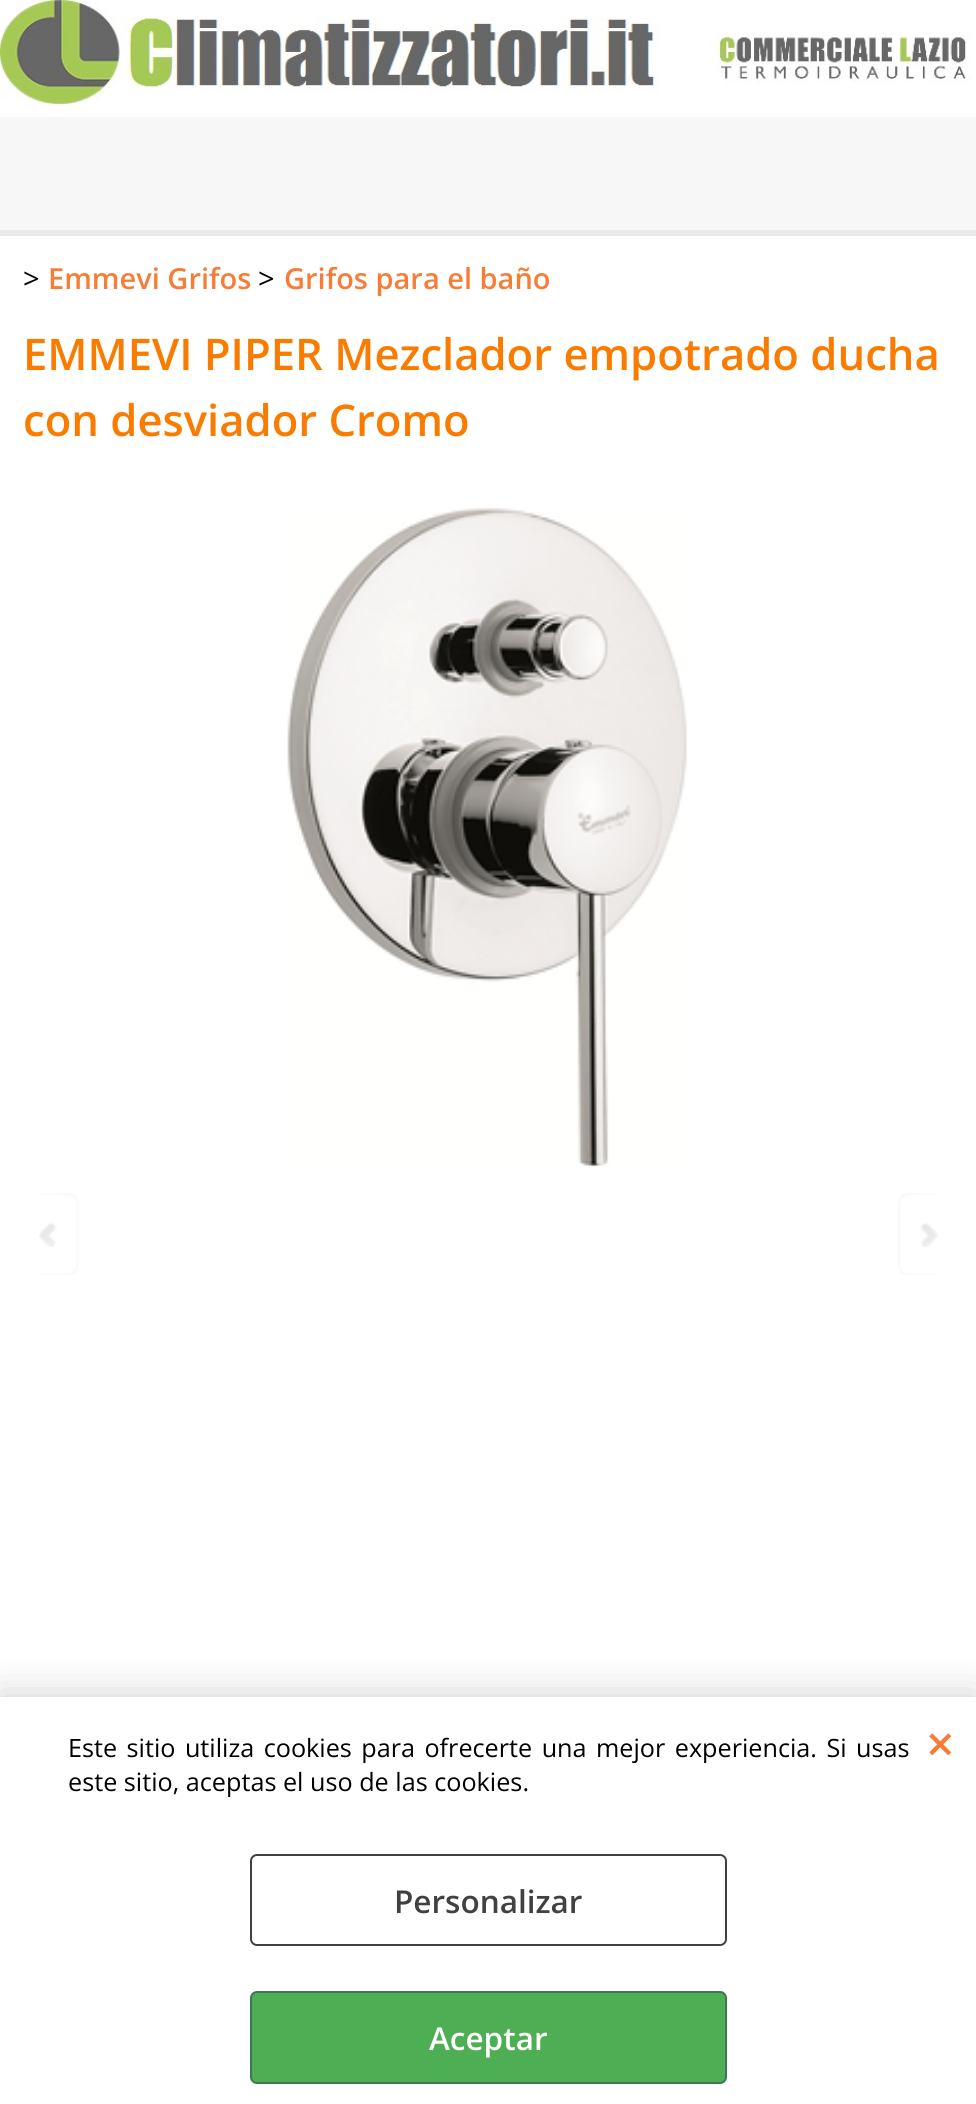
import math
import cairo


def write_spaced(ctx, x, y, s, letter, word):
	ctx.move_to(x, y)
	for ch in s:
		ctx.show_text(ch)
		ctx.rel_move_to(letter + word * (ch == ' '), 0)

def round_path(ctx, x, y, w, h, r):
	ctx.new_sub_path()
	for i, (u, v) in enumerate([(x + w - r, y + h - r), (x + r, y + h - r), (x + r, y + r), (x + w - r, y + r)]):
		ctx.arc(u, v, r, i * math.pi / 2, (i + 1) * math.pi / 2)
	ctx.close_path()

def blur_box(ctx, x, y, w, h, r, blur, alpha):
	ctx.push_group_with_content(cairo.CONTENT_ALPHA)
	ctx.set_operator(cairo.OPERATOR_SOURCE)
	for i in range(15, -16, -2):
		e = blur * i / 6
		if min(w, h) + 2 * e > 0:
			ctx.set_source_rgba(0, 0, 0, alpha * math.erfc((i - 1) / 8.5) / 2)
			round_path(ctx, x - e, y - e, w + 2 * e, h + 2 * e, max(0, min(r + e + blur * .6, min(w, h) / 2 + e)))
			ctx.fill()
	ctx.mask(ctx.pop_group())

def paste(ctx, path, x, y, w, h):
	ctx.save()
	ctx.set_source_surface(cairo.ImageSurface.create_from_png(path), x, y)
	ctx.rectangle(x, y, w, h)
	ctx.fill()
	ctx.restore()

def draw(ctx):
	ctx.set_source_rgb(1, 1, 1)
	ctx.paint()
	paste(ctx, 'media/1.png', 0, 0, 971, 108)
	ctx.set_source_rgb(0.965, 0.965, 0.965)
	ctx.rectangle(0, 117, 976, 113)
	ctx.fill()
	ctx.set_source_rgb(0.914, 0.914, 0.914)
	ctx.rectangle(0, 230, 976, 6)
	ctx.fill()
	ctx.select_font_face('Open Sans')
	ctx.set_font_size(29)
	ctx.set_source_rgb(0, 0, 0)
	ctx.move_to(23, 289)
	ctx.show_text('>')
	ctx.select_font_face('Open Sans SemiBold')
	ctx.set_source_rgb(0.976, 0.486, 0.212)
	ctx.move_to(48, 289)
	ctx.show_text('Emmevi Grifos')
	ctx.select_font_face('Open Sans')
	ctx.set_source_rgb(0, 0, 0)
	ctx.move_to(258, 289)
	ctx.show_text('>')
	ctx.select_font_face('Open Sans SemiBold')
	ctx.set_source_rgb(0.976, 0.486, 0.212)
	ctx.move_to(284, 289)
	ctx.show_text('Grifos para el baño')
	ctx.set_font_size(43.6)
	ctx.set_source_rgb(0.976, 0.486, 0)
	ctx.move_to(23, 370)
	ctx.show_text('EMMEVI PIPER Mezclador empotrado ducha')
	ctx.move_to(23, 436)
	ctx.show_text('con desviador Cromo')
	paste(ctx, 'media/2.png', 287, 508, 400, 660)
	paste(ctx, 'media/3.png', 39, 1193, 39, 82)
	paste(ctx, 'media/4.png', 898, 1193, 40, 82)
	ctx.set_source_rgb(0, 0, 0)
	blur_box(ctx, 0, 1697, 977, 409, 0, 20, 0.2)
	ctx.set_source_rgb(1, 1, 1)
	ctx.rectangle(0, 1697, 976, 407)
	ctx.fill()
	ctx.select_font_face('Open Sans')
	ctx.set_font_size(25.2)
	ctx.set_source_rgb(0, 0, 0)
	write_spaced(ctx, 68, 1757, 'Este sitio utiliza cookies para ofrecerte una mejor experiencia. Si usas', 0, 2.9)
	ctx.move_to(68, 1791)
	ctx.show_text('este sitio, aceptas el uso de las cookies.')
	ctx.select_font_face('Open Sans SemiBold')
	ctx.set_font_size(50)
	ctx.set_source_rgb(0.976, 0.486, 0.212)
	ctx.move_to(926, 1762)
	ctx.show_text('×')
	round_path(ctx, 251, 1855, 475, 90, 6)
	ctx.set_source_rgb(0.259, 0.255, 0.255)
	ctx.stroke()
	ctx.set_font_size(31.5)
	ctx.move_to(394, 1913)
	ctx.show_text('Personalizar')
	ctx.set_source_rgb(0.306, 0.682, 0.329)
	round_path(ctx, 251, 1992, 475, 91, 6)
	ctx.fill_preserve()
	ctx.set_source_rgb(0.247, 0.467, 0.333)
	ctx.stroke()
	ctx.set_source_rgb(1, 1, 1)
	ctx.move_to(429, 2050)
	ctx.show_text('Aceptar')


surface = cairo.ImageSurface(cairo.FORMAT_RGB24, 976, 2104)
ctx = cairo.Context(surface)
options = cairo.FontOptions()
options.set_hint_metrics(cairo.HINT_METRICS_OFF)
options.set_hint_style(cairo.HINT_STYLE_NONE)
ctx.set_font_options(options)
ctx.set_miter_limit(4)
draw(ctx)
surface.write_to_png('image.png')
